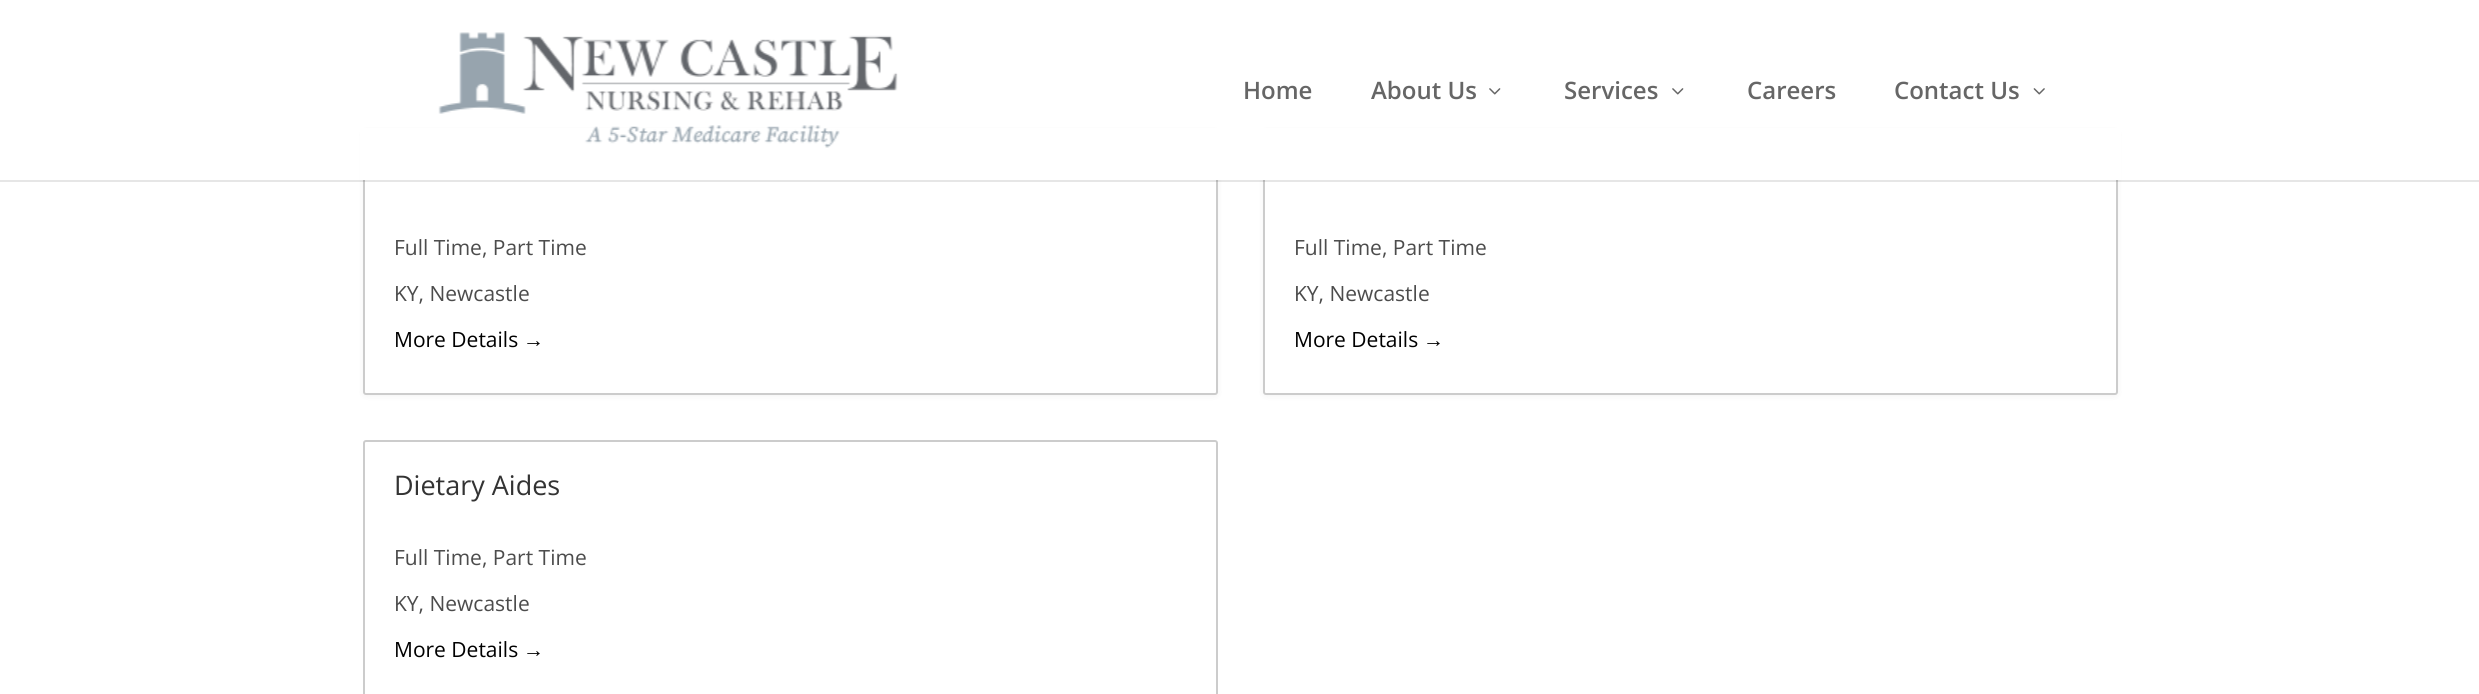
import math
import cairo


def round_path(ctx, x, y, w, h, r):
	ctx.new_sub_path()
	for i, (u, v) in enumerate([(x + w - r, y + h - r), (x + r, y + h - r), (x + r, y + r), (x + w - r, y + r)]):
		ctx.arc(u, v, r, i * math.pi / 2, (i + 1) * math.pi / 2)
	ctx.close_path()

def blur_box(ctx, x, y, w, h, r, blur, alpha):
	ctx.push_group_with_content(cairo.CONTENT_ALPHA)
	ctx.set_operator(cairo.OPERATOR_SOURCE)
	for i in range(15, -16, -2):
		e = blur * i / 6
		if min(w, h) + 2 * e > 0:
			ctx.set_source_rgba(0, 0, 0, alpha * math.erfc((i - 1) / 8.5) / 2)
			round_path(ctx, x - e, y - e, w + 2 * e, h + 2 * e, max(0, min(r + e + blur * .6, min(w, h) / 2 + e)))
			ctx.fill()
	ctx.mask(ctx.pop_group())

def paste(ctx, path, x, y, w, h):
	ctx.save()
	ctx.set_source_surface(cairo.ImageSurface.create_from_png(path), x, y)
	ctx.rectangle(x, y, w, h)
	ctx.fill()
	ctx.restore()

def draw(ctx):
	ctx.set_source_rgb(1, 1, 1)
	ctx.paint()
	ctx.set_source_rgb(0, 0, 0)
	blur_box(ctx, 363, 131, 855, 265, 3, 3, 0.05)
	ctx.set_source_rgb(1, 1, 1)
	round_path(ctx, 364, 130, 853, 264, 2)
	ctx.fill_preserve()
	ctx.set_source_rgb(0.8, 0.8, 0.8)
	ctx.stroke()
	ctx.set_source_rgb(0, 0, 0)
	blur_box(ctx, 1263, 131, 855, 265, 3, 3, 0.05)
	ctx.set_source_rgb(1, 1, 1)
	round_path(ctx, 1264, 130, 853, 264, 2)
	ctx.fill_preserve()
	ctx.set_source_rgb(0.8, 0.8, 0.8)
	ctx.stroke()
	ctx.set_source_rgba(0, 0, 0, 0.1)
	ctx.new_path()
	ctx.move_to(0, 180)
	ctx.line_to(0, 182)
	ctx.line_to(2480, 182)
	ctx.line_to(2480, 2)
	ctx.line_to(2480, 180)
	ctx.close_path()
	ctx.fill()
	ctx.set_source_rgb(1, 1, 1)
	ctx.rectangle(360, 128, 1761, 52)
	ctx.fill()
	paste(ctx, 'media/1.png', 438, 32, 460, 116)
	ctx.select_font_face('Open Sans SemiBold')
	ctx.set_font_size(24)
	ctx.set_source_rgb(0.4, 0.4, 0.4)
	ctx.move_to(1243, 99)
	ctx.show_text('Home')
	ctx.move_to(1371, 99)
	ctx.show_text('About Us')
	paste(ctx, 'media/2.png', 1489, 88, 12, 7)
	ctx.move_to(1564, 99)
	ctx.show_text('Services')
	paste(ctx, 'media/2.png', 1672, 88, 12, 7)
	ctx.move_to(1747, 99)
	ctx.show_text('Careers')
	ctx.move_to(1894, 99)
	ctx.show_text('Contact Us')
	paste(ctx, 'media/3.png', 2033, 88, 12, 7)
	ctx.select_font_face('Open Sans')
	ctx.set_font_size(21)
	ctx.set_source_rgb(0.298, 0.298, 0.298)
	ctx.move_to(394, 255)
	ctx.show_text('Full Time, Part Time')
	ctx.move_to(394, 301)
	ctx.show_text('KY, Newcastle')
	ctx.set_source_rgb(0, 0, 0)
	ctx.move_to(394, 347)
	ctx.show_text('More Details')
	ctx.select_font_face('Liberation Sans')
	ctx.move_to(523, 347)
	ctx.show_text('→')
	ctx.select_font_face('Open Sans')
	ctx.set_source_rgb(0.298, 0.298, 0.298)
	ctx.move_to(1294, 255)
	ctx.show_text('Full Time, Part Time')
	ctx.move_to(1294, 301)
	ctx.show_text('KY, Newcastle')
	ctx.set_source_rgb(0, 0, 0)
	ctx.move_to(1294, 347)
	ctx.show_text('More Details')
	ctx.select_font_face('Liberation Sans')
	ctx.move_to(1423, 347)
	ctx.show_text('→')
	round_path(ctx, 364, 441, 853, 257, 2)
	ctx.set_source_rgb(0.8, 0.8, 0.8)
	ctx.stroke()
	ctx.select_font_face('Open Sans')
	ctx.set_font_size(27)
	ctx.set_source_rgb(0.2, 0.2, 0.2)
	ctx.move_to(394, 495)
	ctx.show_text('Dietary Aides')
	ctx.set_font_size(21)
	ctx.set_source_rgb(0.298, 0.298, 0.298)
	ctx.move_to(394, 565)
	ctx.show_text('Full Time, Part Time')
	ctx.move_to(394, 611)
	ctx.show_text('KY, Newcastle')
	ctx.set_source_rgb(0, 0, 0)
	ctx.move_to(394, 657)
	ctx.show_text('More Details')
	ctx.select_font_face('Liberation Sans')
	ctx.move_to(523, 657)
	ctx.show_text('→')


surface = cairo.ImageSurface(cairo.FORMAT_RGB24, 2479, 694)
ctx = cairo.Context(surface)
options = cairo.FontOptions()
options.set_hint_metrics(cairo.HINT_METRICS_OFF)
options.set_hint_style(cairo.HINT_STYLE_NONE)
ctx.set_font_options(options)
ctx.set_miter_limit(4)
draw(ctx)
surface.write_to_png('image.png')
